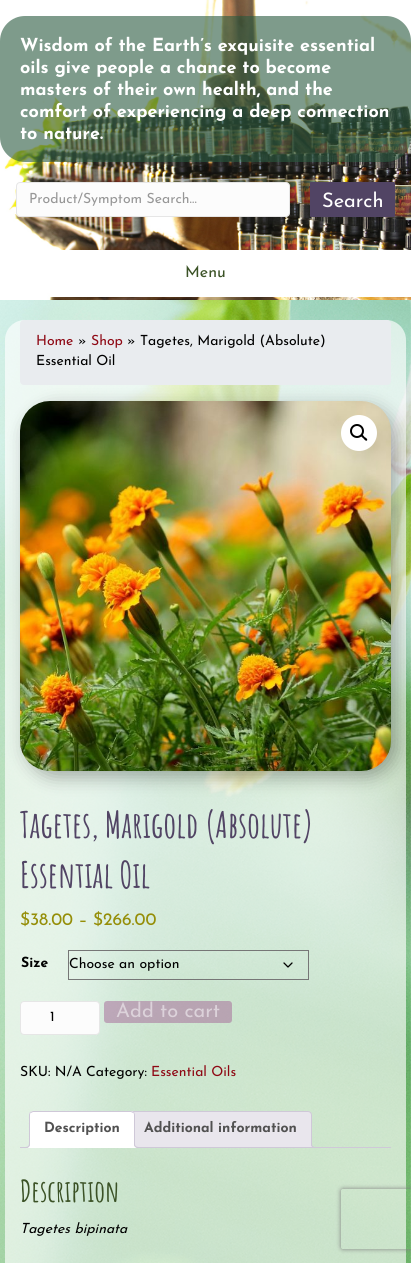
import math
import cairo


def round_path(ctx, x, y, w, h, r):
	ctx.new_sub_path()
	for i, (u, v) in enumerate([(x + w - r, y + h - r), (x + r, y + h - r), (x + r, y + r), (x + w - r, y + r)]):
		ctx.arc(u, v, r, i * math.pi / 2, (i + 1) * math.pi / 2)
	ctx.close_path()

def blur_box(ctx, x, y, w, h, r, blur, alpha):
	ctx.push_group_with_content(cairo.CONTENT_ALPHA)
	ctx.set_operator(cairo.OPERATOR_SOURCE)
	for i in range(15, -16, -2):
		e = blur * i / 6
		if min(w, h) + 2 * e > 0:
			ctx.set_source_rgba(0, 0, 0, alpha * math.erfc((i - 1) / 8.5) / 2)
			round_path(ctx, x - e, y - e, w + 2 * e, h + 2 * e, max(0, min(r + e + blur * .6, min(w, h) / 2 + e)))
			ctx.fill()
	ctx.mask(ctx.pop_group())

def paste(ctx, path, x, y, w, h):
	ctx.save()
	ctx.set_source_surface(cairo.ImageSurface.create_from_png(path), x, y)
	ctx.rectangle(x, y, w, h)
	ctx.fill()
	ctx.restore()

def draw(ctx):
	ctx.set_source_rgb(1, 1, 1)
	ctx.paint()
	paste(ctx, 'media/1.png', 0, 0, 411, 300)
	ctx.set_source_rgba(0.161, 0.349, 0.247, 0.6)
	round_path(ctx, 0, 16, 411, 146, 25)
	ctx.fill()
	ctx.select_font_face('Josefin Sans Thin')
	ctx.set_font_size(18)
	ctx.set_source_rgb(1, 1, 1)
	for x, y, s in [
		(20, 51, 'Wisdom of the Earth’s exquisite essential'),
		(20, 73, 'oils give people a chance to become'),
		(20, 95, 'masters of their own health, and the'),
		(20, 117, 'comfort of experiencing a deep connection'),
		(20, 139, 'to nature.'),
	]:
		ctx.move_to(x, y)
		ctx.show_text(s)
	ctx.set_source_rgb(0.988, 0.988, 0.988)
	round_path(ctx, 16.5, 182.5, 273, 34, 3.5)
	ctx.fill_preserve()
	ctx.set_source_rgb(0.902, 0.902, 0.902)
	ctx.set_line_width(1)
	ctx.stroke()
	ctx.select_font_face('Josefin Sans')
	ctx.set_font_size(14)
	ctx.set_source_rgb(0.592, 0.592, 0.592)
	ctx.move_to(29, 203)
	ctx.show_text('Product/Symptom Search…')
	ctx.set_source_rgb(0.318, 0.267, 0.392)
	round_path(ctx, 310, 182, 85, 35, 1)
	ctx.fill()
	ctx.set_font_size(20)
	ctx.set_source_rgb(1, 1, 1)
	ctx.move_to(322, 207)
	ctx.show_text('Search')
	ctx.rectangle(50, 250, 361, 47)
	ctx.fill()
	ctx.set_font_size(16)
	ctx.set_source_rgb(0.231, 0.322, 0.149)
	ctx.move_to(185, 277)
	ctx.show_text('Menu')
	paste(ctx, 'media/2.png', 0, 300, 411, 963)
	ctx.set_source_rgb(0.914, 0.925, 0.937)
	round_path(ctx, 20, 320, 371, 65, 4)
	ctx.fill()
	ctx.set_font_size(14)
	ctx.set_source_rgb(0.557, 0.035, 0.082)
	ctx.move_to(36, 345)
	ctx.show_text('Home')
	ctx.set_source_rgb(0, 0, 0)
	ctx.move_to(78, 345)
	ctx.show_text('»')
	ctx.set_source_rgb(0.557, 0.035, 0.082)
	ctx.move_to(91, 345)
	ctx.show_text('Shop')
	ctx.set_source_rgb(0, 0, 0)
	ctx.move_to(127, 345)
	ctx.show_text('» Tagetes, Marigold (Absolute)')
	ctx.move_to(36, 365)
	ctx.show_text('Essential Oil')
	ctx.set_source_rgb(0, 0, 0)
	blur_box(ctx, 26, 407, 371, 370, 30, 9, 0.3)
	paste(ctx, 'media/3.png', 20, 401, 371, 370)
	ctx.set_source_rgb(1, 1, 1)
	ctx.arc(359, 433, 18, 0, 2 * math.pi)
	ctx.fill()
	ctx.arc(357, 431, 6, 0, 2 * math.pi)
	ctx.set_source_rgb(0, 0, 0)
	ctx.set_line_width(2)
	ctx.stroke()
	ctx.new_path()
	ctx.move_to(361, 435)
	ctx.curve_to(362.5, 433.5, 364, 436.5, 364.5, 437)
	ctx.curve_to(365.5, 437.5, 368, 439, 367, 440.5)
	ctx.curve_to(365.5, 441.5, 364, 439, 363.5, 438.5)
	ctx.curve_to(362.5, 437.5, 360, 436, 361, 435)
	ctx.close_path()
	ctx.fill()
	ctx.select_font_face('Amatic SC', cairo.FONT_SLANT_NORMAL, cairo.FONT_WEIGHT_BOLD)
	ctx.set_font_size(36)
	ctx.set_source_rgb(0.318, 0.267, 0.392)
	ctx.move_to(20, 838)
	ctx.show_text('Tagetes, Marigold (Absolute)')
	ctx.move_to(20, 888)
	ctx.show_text('Essential Oil')
	ctx.select_font_face('Josefin Sans')
	ctx.set_font_size(17.5)
	ctx.set_source_rgb(0.584, 0.557, 0.035)
	ctx.move_to(20, 925)
	ctx.show_text('$38.00 – $266.00')
	ctx.select_font_face('Josefin Sans Thin')
	ctx.set_font_size(14)
	ctx.set_source_rgb(0, 0, 0)
	ctx.move_to(21, 967)
	ctx.show_text('Size')
	ctx.new_path()
	ctx.move_to(284, 963)
	ctx.line_to(288, 967)
	ctx.line_to(292, 963)
	ctx.set_line_width(1.3)
	ctx.set_line_cap(cairo.LINE_CAP_ROUND)
	ctx.set_line_join(cairo.LINE_JOIN_ROUND)
	ctx.stroke()
	ctx.rectangle(68.5, 950.5, 240, 29)
	ctx.set_source_rgb(0.463, 0.463, 0.463)
	ctx.set_line_width(1)
	ctx.set_line_cap(cairo.LINE_CAP_BUTT)
	ctx.set_line_join(cairo.LINE_JOIN_MITER)
	ctx.stroke()
	ctx.select_font_face('Josefin Sans')
	ctx.set_source_rgb(0, 0, 0)
	ctx.move_to(69, 968)
	ctx.show_text('Choose an option')
	ctx.set_source_rgb(0.988, 0.988, 0.988)
	round_path(ctx, 20.5, 1001.5, 79, 33, 3.5)
	ctx.fill_preserve()
	ctx.set_source_rgb(0.902, 0.902, 0.902)
	ctx.stroke()
	ctx.set_source_rgb(0, 0, 0)
	ctx.move_to(50, 1021)
	ctx.show_text('1')
	ctx.set_source_rgba(0.643, 0.392, 0.592, 0.5)
	round_path(ctx, 104, 1001, 128, 22, 3)
	ctx.fill()
	ctx.set_font_size(20)
	ctx.set_source_rgb(0.863, 0.824, 0.855)
	ctx.move_to(116, 1017)
	ctx.show_text('Add to cart')
	ctx.set_font_size(14)
	ctx.set_source_rgb(0, 0, 0)
	ctx.move_to(20, 1076)
	ctx.show_text('SKU: N/A Category:')
	ctx.set_source_rgb(0.557, 0.035, 0.082)
	ctx.move_to(151, 1076)
	ctx.show_text('Essential Oils')
	ctx.set_source_rgb(0.914, 0.902, 0.929)
	ctx.new_path()
	ctx.move_to(133, 1111.5)
	ctx.line_to(308, 1111.5)
	ctx.curve_to(310, 1111.5, 311.5, 1113, 311.5, 1115)
	ctx.line_to(311.5, 1147.5)
	ctx.line_to(129.5, 1147.5)
	ctx.line_to(129.5, 1115)
	ctx.curve_to(129.5, 1113, 131, 1111.5, 133, 1111.5)
	ctx.close_path()
	ctx.fill_preserve()
	ctx.set_source_rgb(0.812, 0.784, 0.847)
	ctx.stroke()
	ctx.save()
	ctx.rectangle(20, 1111, 371, 37)
	ctx.clip()
	ctx.set_source_rgb(0.914, 0.902, 0.929)
	ctx.new_path()
	ctx.move_to(309, 1145)
	ctx.curve_to(309, 1148.5, 310.5, 1150, 314, 1150)
	ctx.line_to(314, 1148)
	ctx.curve_to(312.5, 1147.5, 311.5, 1146.5, 311, 1145)
	ctx.close_path()
	ctx.fill()
	ctx.restore()
	ctx.set_fill_rule(cairo.FILL_RULE_EVEN_ODD)
	ctx.new_path()
	ctx.move_to(311, 1143)
	ctx.line_to(316, 1143)
	ctx.line_to(316, 1148)
	ctx.curve_to(313.5, 1148, 311, 1147, 311, 1144)
	ctx.close_path()
	ctx.move_to(312, 1143)
	ctx.line_to(316, 1143)
	ctx.line_to(316, 1147)
	ctx.curve_to(314, 1147, 312, 1146.5, 312, 1144)
	ctx.close_path()
	ctx.fill()
	ctx.rectangle(20, 1147, 371, 1)
	ctx.fill()
	ctx.set_source_rgb(1, 1, 1)
	ctx.new_path()
	ctx.move_to(33, 1111)
	ctx.line_to(131, 1111)
	ctx.curve_to(133, 1111, 135, 1113, 135, 1115)
	ctx.line_to(135, 1148)
	ctx.line_to(29, 1148)
	ctx.line_to(29, 1115)
	ctx.curve_to(29, 1113, 31, 1111, 33, 1111)
	ctx.close_path()
	ctx.fill()
	ctx.set_source_rgb(0.812, 0.784, 0.847)
	ctx.set_fill_rule(cairo.FILL_RULE_WINDING)
	ctx.new_path()
	ctx.move_to(33, 1111)
	ctx.line_to(30, 1112)
	ctx.line_to(31, 1113)
	ctx.line_to(33, 1112)
	ctx.line_to(131, 1112)
	ctx.line_to(133, 1113)
	ctx.line_to(134, 1112)
	ctx.line_to(131, 1111)
	ctx.close_path()
	ctx.fill()
	ctx.new_path()
	ctx.move_to(135, 1148)
	ctx.line_to(135, 1115)
	ctx.curve_to(135, 1114, 134.5, 1113, 134, 1112)
	ctx.line_to(133, 1113)
	ctx.curve_to(134, 1113, 134, 1114, 134, 1115)
	ctx.line_to(134, 1147)
	ctx.close_path()
	ctx.fill()
	ctx.set_source_rgb(1, 1, 1)
	ctx.new_path()
	ctx.move_to(135, 1148)
	ctx.line_to(134, 1147)
	ctx.line_to(30, 1147)
	ctx.line_to(29, 1148)
	ctx.close_path()
	ctx.fill()
	ctx.set_source_rgb(0.812, 0.784, 0.847)
	ctx.new_path()
	ctx.move_to(29, 1148)
	ctx.line_to(30, 1147)
	ctx.line_to(30, 1115)
	ctx.curve_to(30, 1114, 30, 1113, 31, 1113)
	ctx.line_to(30, 1112)
	ctx.curve_to(29.5, 1113, 29, 1114, 29, 1115)
	ctx.close_path()
	ctx.fill()
	ctx.select_font_face('Josefin Sans Thin')
	ctx.set_source_rgb(0.318, 0.318, 0.318)
	ctx.move_to(44, 1132)
	ctx.show_text('Description')
	ctx.save()
	ctx.rectangle(20, 1111, 371, 37)
	ctx.clip()
	ctx.set_source_rgb(1, 1, 1)
	ctx.new_path()
	ctx.move_to(27, 1148)
	ctx.line_to(27, 1150)
	ctx.curve_to(30.5, 1150, 32, 1148.5, 32, 1145)
	ctx.line_to(30, 1145)
	ctx.curve_to(29.5, 1146.5, 28.5, 1147.5, 27, 1148)
	ctx.close_path()
	ctx.fill()
	ctx.restore()
	ctx.set_source_rgb(0.812, 0.784, 0.847)
	ctx.set_fill_rule(cairo.FILL_RULE_EVEN_ODD)
	ctx.new_path()
	ctx.move_to(25, 1143)
	ctx.line_to(30, 1143)
	ctx.curve_to(30, 1146.5, 28.5, 1148, 25, 1148)
	ctx.close_path()
	ctx.move_to(25, 1143)
	ctx.line_to(29, 1143)
	ctx.curve_to(29, 1146, 28, 1147, 25, 1147)
	ctx.close_path()
	ctx.fill()
	ctx.save()
	ctx.set_fill_rule(cairo.FILL_RULE_WINDING)
	ctx.rectangle(20, 1111, 371, 37)
	ctx.clip()
	ctx.set_source_rgb(1, 1, 1)
	ctx.new_path()
	ctx.move_to(132, 1145)
	ctx.curve_to(132, 1148.5, 133.5, 1150, 137, 1150)
	ctx.line_to(137, 1148)
	ctx.curve_to(135.5, 1147.5, 134.5, 1146.5, 134, 1145)
	ctx.close_path()
	ctx.fill()
	ctx.restore()
	ctx.new_path()
	ctx.move_to(134, 1143)
	ctx.line_to(139, 1143)
	ctx.line_to(139, 1148)
	ctx.curve_to(136.5, 1148, 134, 1147, 134, 1144)
	ctx.close_path()
	ctx.move_to(135, 1143)
	ctx.line_to(139, 1143)
	ctx.line_to(139, 1147)
	ctx.curve_to(137, 1147, 135, 1146.5, 135, 1144)
	ctx.close_path()
	ctx.fill()
	ctx.set_source_rgb(0.318, 0.318, 0.318)
	ctx.move_to(144, 1132)
	ctx.show_text('Additional information')
	ctx.select_font_face('Amatic SC', cairo.FONT_SLANT_NORMAL, cairo.FONT_WEIGHT_BOLD)
	ctx.set_font_size(30)
	ctx.set_source_rgb(0.231, 0.322, 0.149)
	ctx.move_to(20, 1202)
	ctx.show_text('Description')
	ctx.select_font_face('Josefin Sans', cairo.FONT_SLANT_ITALIC)
	ctx.set_font_size(14)
	ctx.set_source_rgb(0, 0, 0)
	ctx.move_to(20, 1233)
	ctx.show_text('Tagetes bipinata')
	ctx.save()
	ctx.new_path()
	ctx.move_to(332, 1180)
	ctx.line_to(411, 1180)
	ctx.line_to(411, 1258)
	ctx.line_to(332, 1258)
	ctx.close_path()
	ctx.move_to(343, 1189)
	ctx.line_to(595, 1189)
	ctx.curve_to(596, 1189, 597, 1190, 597, 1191)
	ctx.line_to(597, 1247)
	ctx.curve_to(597, 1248, 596, 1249, 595, 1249)
	ctx.line_to(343, 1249)
	ctx.curve_to(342, 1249, 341, 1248, 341, 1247)
	ctx.line_to(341, 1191)
	ctx.curve_to(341, 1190, 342, 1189, 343, 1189)
	ctx.close_path()
	ctx.clip()
	ctx.set_source_rgb(0.502, 0.502, 0.502)
	blur_box(ctx, 341, 1189, 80, 60, 2, 2.5, 1)
	ctx.restore()


surface = cairo.ImageSurface(cairo.FORMAT_RGB24, 411, 1263)
ctx = cairo.Context(surface)
options = cairo.FontOptions()
options.set_hint_metrics(cairo.HINT_METRICS_OFF)
options.set_hint_style(cairo.HINT_STYLE_NONE)
ctx.set_font_options(options)
ctx.set_miter_limit(4)
draw(ctx)
surface.write_to_png('image.png')
